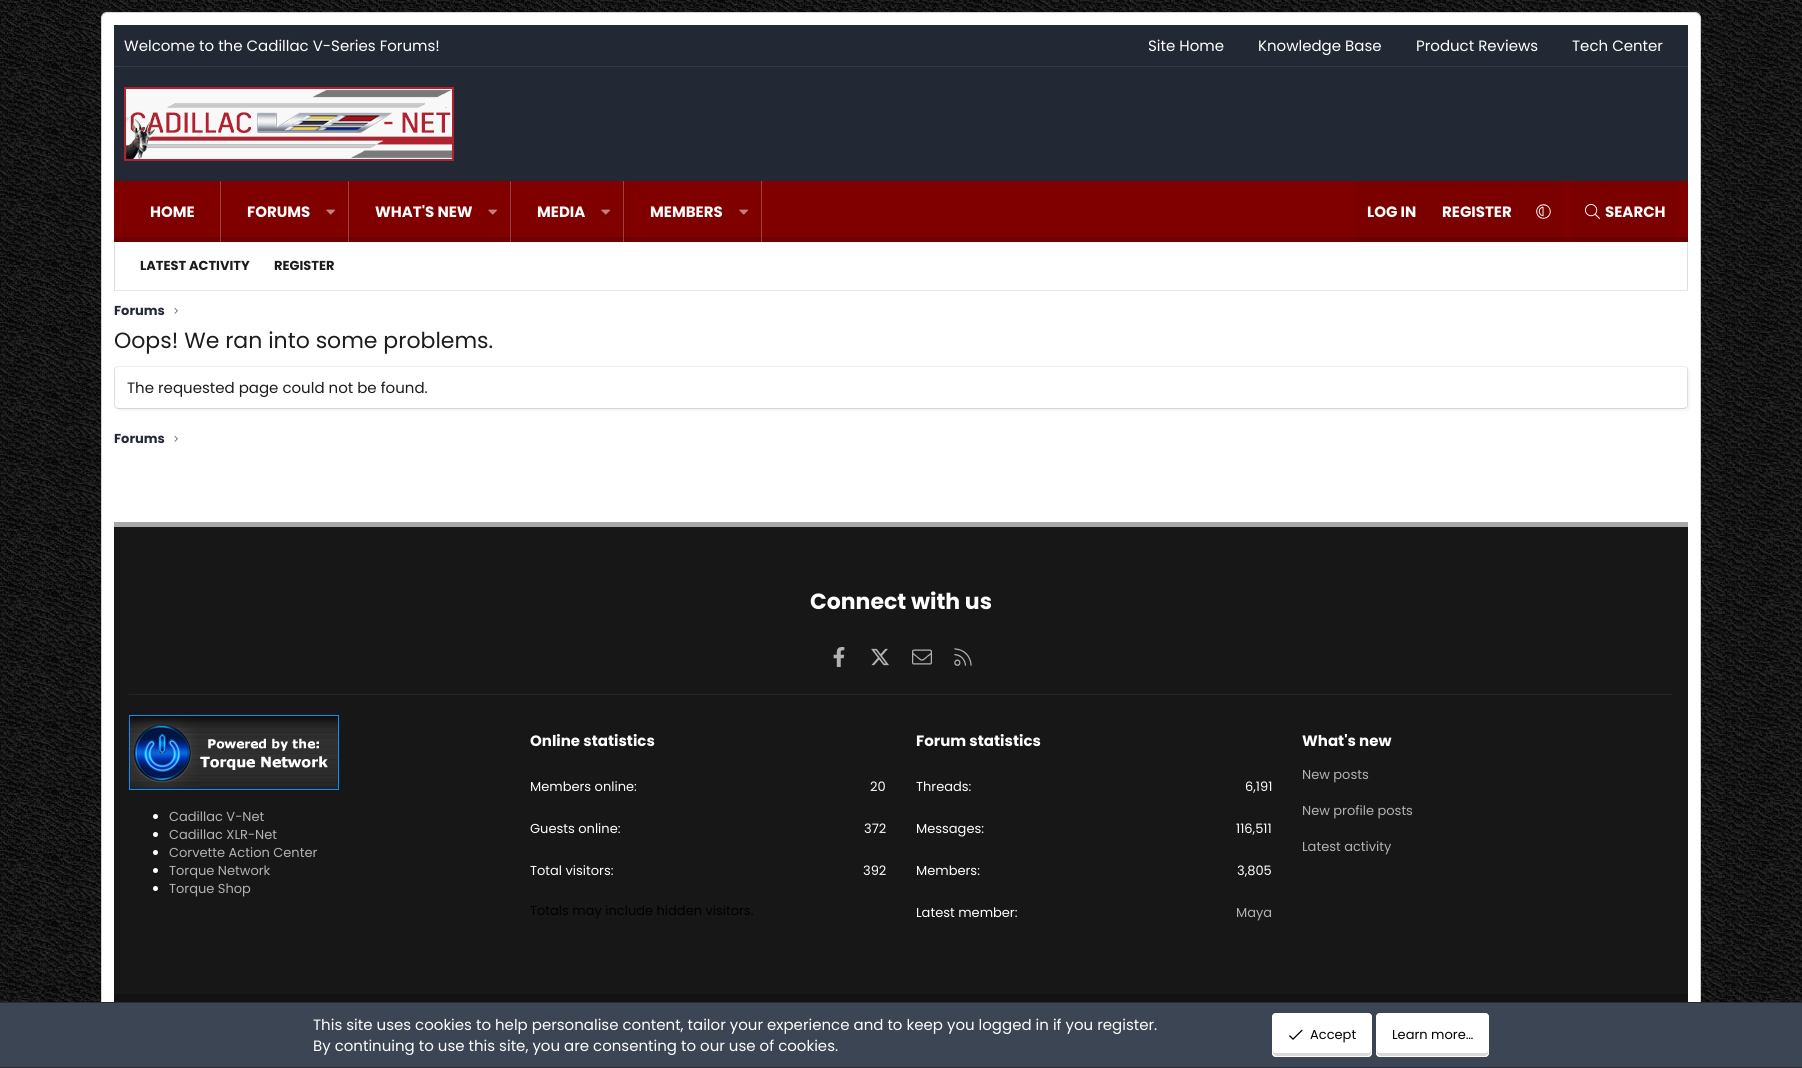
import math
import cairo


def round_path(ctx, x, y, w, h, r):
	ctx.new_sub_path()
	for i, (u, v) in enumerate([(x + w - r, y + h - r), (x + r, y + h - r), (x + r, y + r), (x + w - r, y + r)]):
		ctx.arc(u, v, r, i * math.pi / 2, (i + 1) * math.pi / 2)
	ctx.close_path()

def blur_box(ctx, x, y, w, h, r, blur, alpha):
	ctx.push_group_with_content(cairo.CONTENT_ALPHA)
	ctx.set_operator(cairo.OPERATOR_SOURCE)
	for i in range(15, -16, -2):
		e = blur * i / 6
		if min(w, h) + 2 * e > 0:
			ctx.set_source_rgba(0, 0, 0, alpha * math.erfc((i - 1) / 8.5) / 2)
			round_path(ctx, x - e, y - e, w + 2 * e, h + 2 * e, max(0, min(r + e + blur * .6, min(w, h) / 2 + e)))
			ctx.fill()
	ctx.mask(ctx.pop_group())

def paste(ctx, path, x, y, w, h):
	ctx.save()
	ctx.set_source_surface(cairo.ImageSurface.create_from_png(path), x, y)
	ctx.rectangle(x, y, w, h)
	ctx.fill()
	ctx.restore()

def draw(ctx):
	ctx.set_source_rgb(1, 1, 1)
	ctx.paint()
	paste(ctx, 'media/1.png', 0, 0, 1802, 1002)
	ctx.set_source_rgb(1, 1, 1)
	round_path(ctx, 101.5, 12.5, 1599, 1043, 5.5)
	ctx.fill_preserve()
	ctx.set_source_rgb(0.831, 0.831, 0.831)
	ctx.set_line_width(1)
	ctx.stroke()
	ctx.set_source_rgb(0.137, 0.161, 0.204)
	ctx.rectangle(114, 25, 1574, 41)
	ctx.fill()
	ctx.set_source_rgb(0.196, 0.227, 0.286)
	ctx.rectangle(114, 66, 1574, 1)
	ctx.fill()
	ctx.select_font_face('Poppins')
	ctx.set_font_size(15)
	ctx.set_source_rgb(1, 1, 1)
	for x, y, s in [
		(124, 51, 'Welcome to the Cadillac V-Series Forums!'),
		(1148, 51, 'Site Home'),
		(1258, 51, 'Knowledge Base'),
		(1416, 51, 'Product Reviews'),
		(1572, 51, 'Tech Center'),
	]:
		ctx.move_to(x, y)
		ctx.show_text(s)
	ctx.set_source_rgb(0.137, 0.161, 0.204)
	ctx.rectangle(114, 67, 1574, 114)
	ctx.fill()
	paste(ctx, 'media/2.png', 124, 87, 330, 74)
	ctx.set_source_rgb(0.502, 0, 0)
	ctx.rectangle(114, 181, 1574, 56)
	ctx.fill()
	ctx.set_source_rgb(0.427, 0, 0)
	ctx.rectangle(114, 237, 1574, 5)
	ctx.fill()
	ctx.set_source_rgba(1, 1, 1, 0.25)
	ctx.rectangle(220, 181, 1, 61)
	ctx.fill()
	ctx.set_source_rgba(0, 0, 0, 0.12)
	ctx.rectangle(124, 181, 1, 61)
	ctx.fill()
	ctx.select_font_face('Poppins', cairo.FONT_SLANT_NORMAL, cairo.FONT_WEIGHT_BOLD)
	ctx.set_source_rgb(1, 1, 1)
	ctx.move_to(150, 217)
	ctx.show_text('HOME')
	ctx.set_source_rgba(1, 1, 1, 0.25)
	ctx.rectangle(348, 181, 1, 61)
	ctx.fill()
	ctx.set_source_rgba(0, 0, 0, 0.12)
	ctx.rectangle(221, 181, 1, 61)
	ctx.fill()
	ctx.set_source_rgb(1, 1, 1)
	ctx.move_to(247, 217)
	ctx.show_text('FORUMS')
	paste(ctx, 'media/3.png', 326, 209, 9, 6)
	ctx.set_source_rgba(1, 1, 1, 0.25)
	ctx.rectangle(510, 181, 1, 61)
	ctx.fill()
	ctx.set_source_rgba(0, 0, 0, 0.12)
	ctx.rectangle(349, 181, 1, 61)
	ctx.fill()
	ctx.set_source_rgb(1, 1, 1)
	ctx.move_to(375, 217)
	ctx.show_text('WHAT\'S NEW')
	paste(ctx, 'media/3.png', 488, 209, 9, 6)
	ctx.set_source_rgba(1, 1, 1, 0.25)
	ctx.rectangle(623, 181, 1, 61)
	ctx.fill()
	ctx.set_source_rgba(0, 0, 0, 0.12)
	ctx.rectangle(511, 181, 1, 61)
	ctx.fill()
	ctx.set_source_rgb(1, 1, 1)
	ctx.move_to(537, 217)
	ctx.show_text('MEDIA')
	paste(ctx, 'media/3.png', 601, 209, 9, 6)
	ctx.set_source_rgba(1, 1, 1, 0.25)
	ctx.rectangle(761, 181, 1, 61)
	ctx.fill()
	ctx.set_source_rgba(0, 0, 0, 0.12)
	ctx.rectangle(624, 181, 1, 61)
	ctx.fill()
	ctx.set_source_rgb(1, 1, 1)
	ctx.move_to(650, 217)
	ctx.show_text('MEMBERS')
	paste(ctx, 'media/3.png', 739, 209, 9, 6)
	ctx.set_source_rgba(0.11, 0.11, 0.11, 0.05)
	ctx.rectangle(1355, 181, 208, 61)
	ctx.fill()
	ctx.set_source_rgb(1, 1, 1)
	ctx.move_to(1367, 217)
	ctx.show_text('LOG IN')
	ctx.set_source_rgba(0.11, 0.11, 0.11, 0.05)
	ctx.rectangle(1429, 181, 1, 61)
	ctx.fill()
	ctx.set_source_rgb(1, 1, 1)
	ctx.move_to(1442, 217)
	ctx.show_text('REGISTER')
	ctx.set_source_rgba(0.11, 0.11, 0.11, 0.05)
	ctx.rectangle(1523, 181, 1, 61)
	ctx.fill()
	paste(ctx, 'media/4.png', 1536, 204, 15, 15)
	ctx.rectangle(1571, 181, 107, 61)
	ctx.fill()
	paste(ctx, 'media/5.png', 1585, 204, 15, 15)
	ctx.set_source_rgb(1, 1, 1)
	ctx.move_to(1605, 217)
	ctx.show_text('SEARCH')
	ctx.set_source_rgb(0.871, 0.871, 0.871)
	ctx.rectangle(1687, 242, 1, 49)
	ctx.fill()
	ctx.set_source_rgb(0.902, 0.902, 0.902)
	ctx.rectangle(114, 290, 1574, 1)
	ctx.fill()
	ctx.set_source_rgb(0.871, 0.871, 0.871)
	ctx.rectangle(114, 242, 1, 49)
	ctx.fill()
	ctx.set_font_size(13)
	ctx.set_source_rgb(0.11, 0.11, 0.11)
	ctx.move_to(140, 270)
	ctx.show_text('LATEST ACTIVITY')
	ctx.move_to(274, 270)
	ctx.show_text('REGISTER')
	ctx.set_source_rgb(0.137, 0.161, 0.204)
	ctx.move_to(114, 315)
	ctx.show_text('Forums')
	paste(ctx, 'media/6.png', 174, 308, 4, 6)
	ctx.select_font_face('Poppins')
	ctx.set_font_size(22)
	ctx.set_source_rgb(0.11, 0.11, 0.11)
	ctx.move_to(114, 348)
	ctx.show_text('Oops! We ran into some problems.')
	ctx.set_source_rgb(0, 0, 0)
	blur_box(ctx, 116, 368, 1574, 43, 4, 1, 0.04)
	ctx.set_source_rgb(1, 1, 1)
	round_path(ctx, 114, 366, 1574, 43, 4)
	ctx.fill()
	ctx.new_path()
	ctx.move_to(115.5, 367.5)
	ctx.line_to(118, 366.5)
	ctx.line_to(1684, 366.5)
	ctx.line_to(1686.5, 367.5)
	ctx.set_source_rgb(0.929, 0.929, 0.929)
	ctx.stroke()
	ctx.new_path()
	ctx.move_to(1686.5, 367.5)
	ctx.curve_to(1687, 368, 1687.5, 369, 1687.5, 370)
	ctx.line_to(1687.5, 405)
	ctx.curve_to(1687.5, 406, 1687, 407, 1686.5, 407.5)
	ctx.set_source_rgb(0.871, 0.871, 0.871)
	ctx.stroke()
	ctx.new_path()
	ctx.move_to(1686.5, 407.5)
	ctx.line_to(1684, 408.5)
	ctx.line_to(118, 408.5)
	ctx.line_to(115.5, 407.5)
	ctx.set_source_rgb(0.831, 0.831, 0.831)
	ctx.stroke()
	ctx.new_path()
	ctx.move_to(115.5, 407.5)
	ctx.curve_to(115, 407, 114.5, 406, 114.5, 405)
	ctx.line_to(114.5, 370)
	ctx.curve_to(114.5, 369, 115, 368, 115.5, 367.5)
	ctx.set_source_rgb(0.871, 0.871, 0.871)
	ctx.stroke()
	ctx.set_font_size(15)
	ctx.set_source_rgb(0.11, 0.11, 0.11)
	ctx.move_to(127, 393)
	ctx.show_text('The requested page could not be found.')
	ctx.select_font_face('Poppins', cairo.FONT_SLANT_NORMAL, cairo.FONT_WEIGHT_BOLD)
	ctx.set_font_size(13)
	ctx.set_source_rgb(0.137, 0.161, 0.204)
	ctx.move_to(114, 443)
	ctx.show_text('Forums')
	paste(ctx, 'media/6.png', 174, 436, 4, 6)
	ctx.set_source_rgb(0.09, 0.09, 0.09)
	ctx.rectangle(114, 527, 1574, 467)
	ctx.fill()
	ctx.set_source_rgb(0.659, 0.659, 0.659)
	ctx.rectangle(114, 522, 1574, 5)
	ctx.fill()
	ctx.set_source_rgb(0.141, 0.141, 0.141)
	ctx.rectangle(129, 694, 1544, 1)
	ctx.fill()
	ctx.set_font_size(22)
	ctx.set_source_rgb(1, 1, 1)
	ctx.move_to(810, 609)
	ctx.show_text('Connect with us')
	paste(ctx, 'media/7.png', 833, 647, 12, 20)
	paste(ctx, 'media/8.png', 871, 648, 18, 18)
	paste(ctx, 'media/9.png', 912, 649, 20, 16)
	paste(ctx, 'media/10.png', 954, 648, 18, 18)
	paste(ctx, 'media/11.png', 129, 715, 210, 75)
	ctx.arc(155.5, 816.5, 2.5, 0, 2 * math.pi)
	ctx.fill()
	ctx.select_font_face('Poppins')
	ctx.set_font_size(13)
	ctx.set_source_rgb(0.698, 0.698, 0.698)
	ctx.move_to(169, 821)
	ctx.show_text('Cadillac V-Net')
	ctx.set_source_rgb(1, 1, 1)
	ctx.new_path()
	ctx.arc(155.5, 834.5, 2.5, 0, 2 * math.pi)
	ctx.fill()
	ctx.set_source_rgb(0.698, 0.698, 0.698)
	ctx.move_to(169, 839)
	ctx.show_text('Cadillac XLR-Net')
	ctx.set_source_rgb(1, 1, 1)
	ctx.new_path()
	ctx.arc(155.5, 852.5, 2.5, 0, 2 * math.pi)
	ctx.fill()
	ctx.set_source_rgb(0.698, 0.698, 0.698)
	ctx.move_to(169, 857)
	ctx.show_text('Corvette Action Center')
	ctx.set_source_rgb(1, 1, 1)
	ctx.new_path()
	ctx.arc(155.5, 870.5, 2.5, 0, 2 * math.pi)
	ctx.fill()
	ctx.set_source_rgb(0.698, 0.698, 0.698)
	ctx.move_to(169, 875)
	ctx.show_text('Torque Network')
	ctx.set_source_rgb(1, 1, 1)
	ctx.new_path()
	ctx.arc(155.5, 888.5, 2.5, 0, 2 * math.pi)
	ctx.fill()
	ctx.set_source_rgb(0.698, 0.698, 0.698)
	ctx.move_to(169, 893)
	ctx.show_text('Torque Shop')
	ctx.select_font_face('Poppins', cairo.FONT_SLANT_NORMAL, cairo.FONT_WEIGHT_BOLD)
	ctx.set_font_size(15)
	ctx.set_source_rgb(1, 1, 1)
	ctx.move_to(530, 746)
	ctx.show_text('Online statistics')
	ctx.select_font_face('Poppins')
	ctx.set_font_size(13)
	for x, y, s in [
		(530, 791, 'Members online:'),
		(870, 791, '20'),
		(530, 833, 'Guests online:'),
		(864, 833, '372'),
		(530, 875, 'Total visitors:'),
		(863, 875, '392'),
	]:
		ctx.move_to(x, y)
		ctx.show_text(s)
	ctx.set_source_rgb(0, 0, 0)
	ctx.move_to(530, 915)
	ctx.show_text('Totals may include hidden visitors.')
	ctx.select_font_face('Poppins', cairo.FONT_SLANT_NORMAL, cairo.FONT_WEIGHT_BOLD)
	ctx.set_font_size(15)
	ctx.set_source_rgb(1, 1, 1)
	ctx.move_to(916, 746)
	ctx.show_text('Forum statistics')
	ctx.select_font_face('Poppins')
	ctx.set_font_size(13)
	for x, y, s in [
		(916, 791, 'Threads:'),
		(1245, 791, '6,191'),
		(916, 833, 'Messages:'),
		(1236, 833, '116,511'),
		(916, 875, 'Members:'),
		(1237, 875, '3,805'),
		(916, 917, 'Latest member:'),
	]:
		ctx.move_to(x, y)
		ctx.show_text(s)
	ctx.set_source_rgb(0.698, 0.698, 0.698)
	ctx.move_to(1236, 917)
	ctx.show_text('Maya')
	ctx.select_font_face('Poppins', cairo.FONT_SLANT_NORMAL, cairo.FONT_WEIGHT_BOLD)
	ctx.set_font_size(15)
	ctx.set_source_rgb(1, 1, 1)
	ctx.move_to(1302, 746)
	ctx.show_text('What\'s new')
	ctx.select_font_face('Poppins')
	ctx.set_font_size(13)
	ctx.set_source_rgb(0.698, 0.698, 0.698)
	for x, y, s in [
		(1302, 779, 'New posts'),
		(1302, 815, 'New profile posts'),
		(1302, 851, 'Latest activity'),
	]:
		ctx.move_to(x, y)
		ctx.show_text(s)
	ctx.set_source_rgb(0.071, 0.071, 0.071)
	ctx.rectangle(114, 994, 1574, 8)
	ctx.fill()
	ctx.set_source_rgb(0.235, 0.271, 0.325)
	ctx.rectangle(0, 1003, 1802, 64)
	ctx.fill()
	ctx.set_source_rgb(0.153, 0.173, 0.208)
	ctx.rectangle(0, 1002, 1802, 1)
	ctx.rectangle(0, 1067, 1802, 1)
	ctx.fill()
	ctx.set_font_size(15)
	ctx.set_source_rgb(1, 1, 1)
	ctx.move_to(313, 1030)
	ctx.show_text('This site uses cookies to help personalise content, tailor your experience and to keep you logged in if you register.')
	ctx.move_to(313, 1051)
	ctx.show_text('By continuing to use this site, you are consenting to our use of cookies.')
	round_path(ctx, 1272, 1013, 100, 44, 4)
	ctx.fill()
	ctx.set_source_rgb(0.851, 0.851, 0.851)
	ctx.new_path()
	ctx.move_to(1273, 1050)
	ctx.line_to(1273, 1053)
	ctx.curve_to(1273, 1055, 1274, 1056, 1276, 1056)
	ctx.line_to(1368, 1056)
	ctx.curve_to(1370, 1056, 1371, 1055, 1371, 1053)
	ctx.line_to(1371, 1050)
	ctx.curve_to(1371, 1052, 1370, 1053, 1368, 1053)
	ctx.line_to(1276, 1053)
	ctx.curve_to(1274, 1053, 1273, 1052, 1273, 1050)
	ctx.close_path()
	ctx.fill()
	round_path(ctx, 1272.5, 1013.5, 99, 43, 3.5)
	ctx.set_source_rgb(1, 1, 1)
	ctx.stroke()
	paste(ctx, 'media/12.png', 1289, 1029, 14, 11)
	ctx.set_font_size(13)
	ctx.set_source_rgb(0, 0, 0)
	ctx.move_to(1310, 1039)
	ctx.show_text('Accept')
	ctx.set_source_rgb(1, 1, 1)
	round_path(ctx, 1376, 1013, 113, 44, 4)
	ctx.fill()
	ctx.set_source_rgb(0.851, 0.851, 0.851)
	ctx.new_path()
	ctx.move_to(1377, 1050)
	ctx.line_to(1377, 1053)
	ctx.curve_to(1377, 1055, 1378, 1056, 1380, 1056)
	ctx.line_to(1485, 1056)
	ctx.curve_to(1487, 1056, 1488, 1055, 1488, 1053)
	ctx.line_to(1488, 1050)
	ctx.curve_to(1488, 1052, 1487, 1053, 1485, 1053)
	ctx.line_to(1380, 1053)
	ctx.curve_to(1378, 1053, 1377, 1052, 1377, 1050)
	ctx.close_path()
	ctx.fill()
	round_path(ctx, 1376.5, 1013.5, 112, 43, 3.5)
	ctx.set_source_rgb(1, 1, 1)
	ctx.stroke()
	ctx.set_source_rgb(0, 0, 0)
	ctx.move_to(1392, 1039)
	ctx.show_text('Learn more…')


surface = cairo.ImageSurface(cairo.FORMAT_RGB24, 1802, 1068)
ctx = cairo.Context(surface)
options = cairo.FontOptions()
options.set_hint_metrics(cairo.HINT_METRICS_OFF)
options.set_hint_style(cairo.HINT_STYLE_NONE)
ctx.set_font_options(options)
ctx.set_miter_limit(4)
draw(ctx)
surface.write_to_png('image.png')
